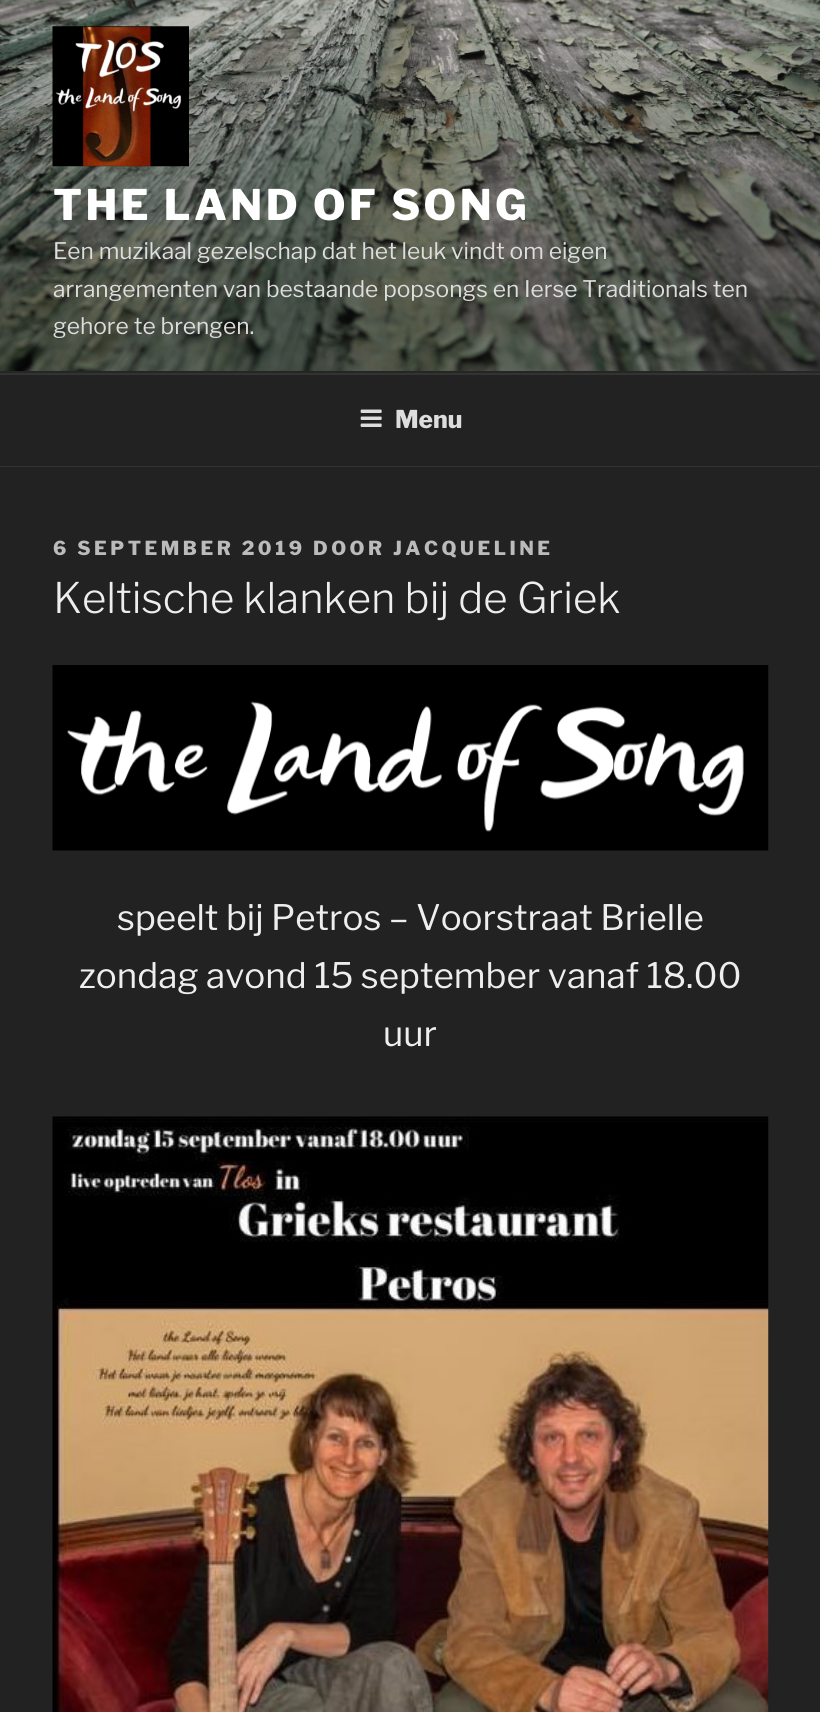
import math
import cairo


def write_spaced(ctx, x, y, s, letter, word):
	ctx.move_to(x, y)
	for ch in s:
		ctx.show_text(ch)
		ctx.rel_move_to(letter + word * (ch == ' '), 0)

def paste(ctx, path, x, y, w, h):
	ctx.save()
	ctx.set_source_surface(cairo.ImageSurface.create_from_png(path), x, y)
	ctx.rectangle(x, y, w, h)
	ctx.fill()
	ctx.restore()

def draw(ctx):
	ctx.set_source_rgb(0.149, 0.149, 0.149)
	ctx.paint()
	paste(ctx, 'media/1.png', 0, 0, 820, 371)
	paste(ctx, 'media/2.png', 52, 26, 137, 141)
	ctx.select_font_face('Libre Franklin Thin')
	ctx.set_font_size(42)
	ctx.set_source_rgb(1, 1, 1)
	write_spaced(ctx, 53, 220, 'THE LAND OF SONG', 3.4, 0)
	ctx.select_font_face('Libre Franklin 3 Thin')
	ctx.set_font_size(22.75)
	ctx.set_source_rgb(0.867, 0.867, 0.867)
	for x, y, s in [
		(53, 259, 'Een muzikaal gezelschap dat het leuk vindt om eigen'),
		(53, 297, 'arrangementen van bestaande popsongs en'),
		(524, 297, 'Ierse Traditionals ten'),
		(53, 334, 'gehore te brengen.'),
	]:
		ctx.move_to(x, y)
		ctx.show_text(s)
	ctx.set_source_rgb(0.133, 0.133, 0.133)
	ctx.rectangle(0, 375, 820, 91)
	ctx.fill()
	ctx.set_source_rgb(0.2, 0.2, 0.2)
	ctx.rectangle(0, 373, 820, 2)
	ctx.rectangle(0, 466, 820, 1)
	ctx.fill()
	paste(ctx, 'media/3.png', 360, 409, 22, 18)
	ctx.select_font_face('Libre Franklin Thin')
	ctx.set_font_size(24.5)
	ctx.set_source_rgb(0.867, 0.867, 0.867)
	ctx.move_to(395, 428)
	ctx.show_text('Menu')
	ctx.set_source_rgb(0.133, 0.133, 0.133)
	ctx.rectangle(0, 467, 820, 1245)
	ctx.fill()
	ctx.set_font_size(19.25)
	ctx.set_source_rgb(0.733, 0.733, 0.733)
	write_spaced(ctx, 53, 555, '6 SEPTEMBER 2019 DOOR JACQUELINE', 3.5, 0)
	ctx.select_font_face('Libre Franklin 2 Thin')
	ctx.set_font_size(42)
	ctx.set_source_rgb(0.933, 0.933, 0.933)
	ctx.move_to(53, 613)
	ctx.show_text('Keltische klanken bij de Griek')
	paste(ctx, 'media/4.png', 52, 665, 717, 186)
	ctx.select_font_face('Libre Franklin 3 Thin')
	ctx.set_font_size(35)
	for x, y, s in [
		(117, 930, 'speelt bij Petros – Voorstraat Brielle'),
		(79, 988, 'zondag avond 15 september vanaf 18.00'),
		(383, 1046, 'uur'),
	]:
		ctx.move_to(x, y)
		ctx.show_text(s)
	paste(ctx, 'media/5.png', 52, 1116, 717, 596)


surface = cairo.ImageSurface(cairo.FORMAT_RGB24, 820, 1712)
ctx = cairo.Context(surface)
options = cairo.FontOptions()
options.set_hint_metrics(cairo.HINT_METRICS_OFF)
options.set_hint_style(cairo.HINT_STYLE_NONE)
ctx.set_font_options(options)
ctx.set_miter_limit(4)
draw(ctx)
surface.write_to_png('image.png')
